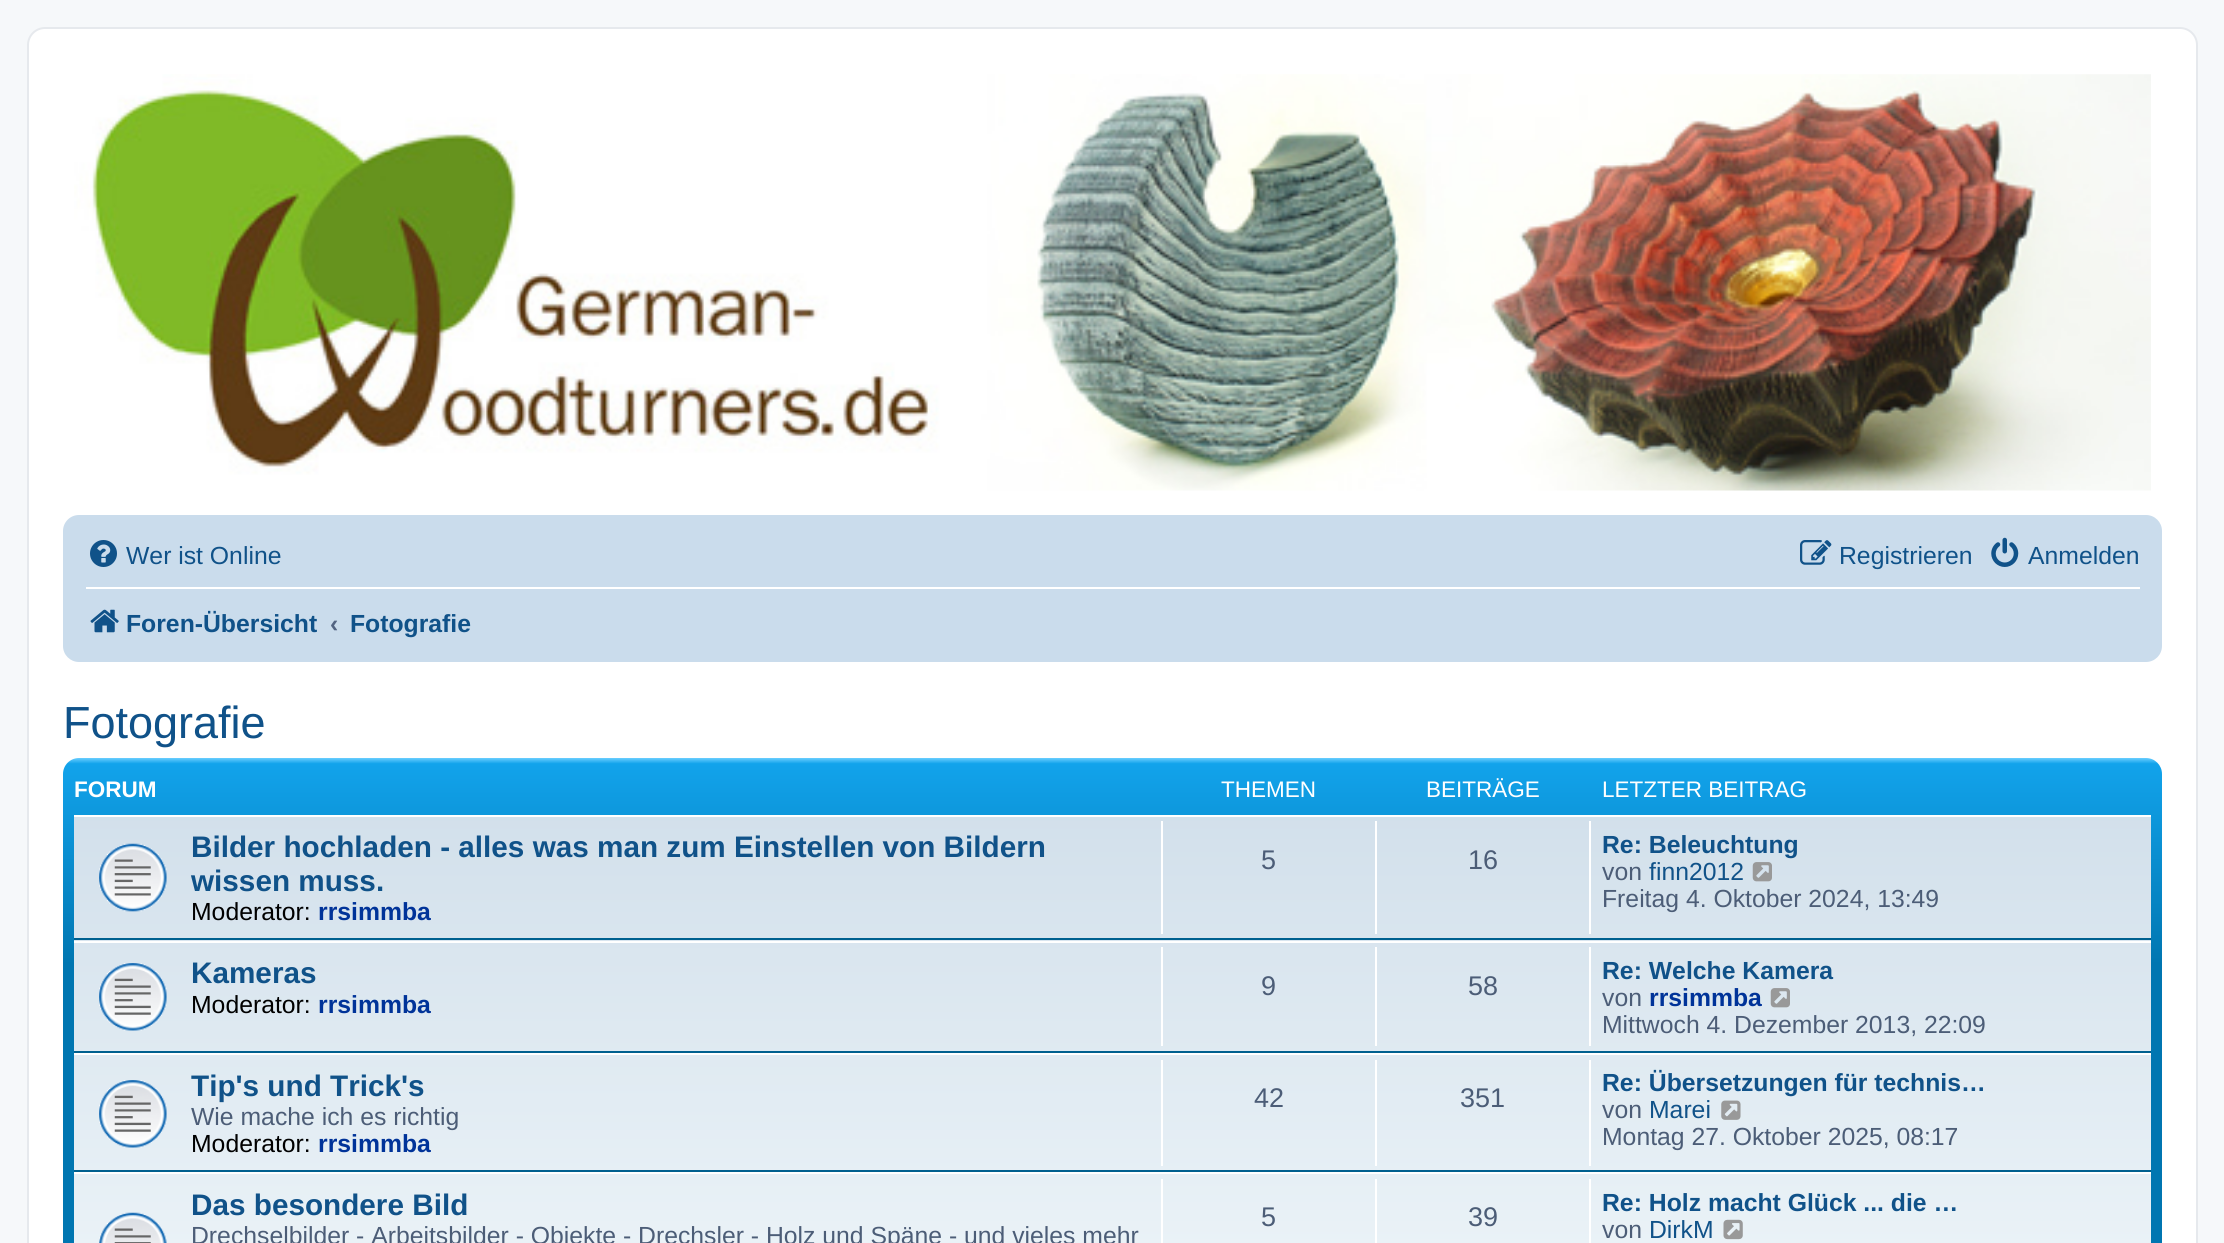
import math
import cairo


def round_path(ctx, x, y, w, h, r):
	ctx.new_sub_path()
	for i, (u, v) in enumerate([(x + w - r, y + h - r), (x + r, y + h - r), (x + r, y + r), (x + w - r, y + r)]):
		ctx.arc(u, v, r, i * math.pi / 2, (i + 1) * math.pi / 2)
	ctx.close_path()

def paste(ctx, path, x, y, w, h):
	ctx.save()
	ctx.set_source_surface(cairo.ImageSurface.create_from_png(path), x, y)
	ctx.rectangle(x, y, w, h)
	ctx.fill()
	ctx.restore()

def draw(ctx):
	ctx.set_source_rgb(0.961, 0.969, 0.98)
	ctx.paint()
	ctx.set_source_rgb(1, 1, 1)
	round_path(ctx, 28, 28, 2169, 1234, 17)
	ctx.fill_preserve()
	ctx.set_source_rgb(0.902, 0.914, 0.929)
	ctx.stroke()
	paste(ctx, 'media/1.png', 74, 74, 2077, 417)
	ctx.set_source_rgb(0.792, 0.863, 0.922)
	round_path(ctx, 63, 515, 2099, 147, 16)
	ctx.fill()
	paste(ctx, 'media/2.png', 90, 540, 27, 27)
	ctx.select_font_face('Liberation Sans')
	ctx.set_font_size(24.75)
	ctx.set_source_rgb(0.063, 0.322, 0.537)
	ctx.move_to(126, 564)
	ctx.show_text('Wer ist Online')
	paste(ctx, 'media/3.png', 1800, 540, 32, 25)
	ctx.move_to(1839, 564)
	ctx.show_text('Registrieren')
	paste(ctx, 'media/4.png', 1991, 537, 28, 30)
	ctx.move_to(2028, 564)
	ctx.show_text('Anmelden')
	ctx.set_source_rgb(1, 1, 1)
	ctx.rectangle(86, 587, 2054, 2)
	ctx.fill()
	paste(ctx, 'media/5.png', 90, 609, 29, 24)
	ctx.select_font_face('Liberation Sans', cairo.FONT_SLANT_NORMAL, cairo.FONT_WEIGHT_BOLD)
	ctx.set_source_rgb(0.063, 0.322, 0.537)
	ctx.move_to(126, 632)
	ctx.show_text('Foren-Übersicht')
	ctx.set_source_rgb(0.325, 0.392, 0.51)
	ctx.move_to(330, 632)
	ctx.show_text('‹')
	ctx.save()
	ctx.rectangle(351, 596, 119, 54)
	ctx.clip()
	ctx.set_source_rgb(0.063, 0.322, 0.537)
	ctx.move_to(350, 632)
	ctx.show_text('Fotografie')
	ctx.restore()
	ctx.select_font_face('Liberation Sans')
	ctx.set_font_size(45)
	ctx.set_source_rgb(0.063, 0.322, 0.537)
	ctx.move_to(63, 738)
	ctx.show_text('Fotografie')
	gradient = cairo.LinearGradient(1113, 758, 1113, 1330)
	gradient.add_color_stop_rgba(0, 0.416, 0.808, 1, 1)
	gradient.add_color_stop_rgba(0.01, 0.071, 0.639, 0.922, 1)
	gradient.add_color_stop_rgba(0.36, 0, 0.463, 0.694, 1)
	gradient.add_color_stop_rgba(1, 0, 0.463, 0.694, 1)
	ctx.set_source(gradient)
	round_path(ctx, 63, 758, 2099, 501, 16)
	ctx.fill()
	ctx.select_font_face('Liberation Sans', cairo.FONT_SLANT_NORMAL, cairo.FONT_WEIGHT_BOLD)
	ctx.set_font_size(22.5)
	ctx.set_source_rgb(1, 1, 1)
	ctx.move_to(74, 797)
	ctx.show_text('FORUM')
	ctx.select_font_face('Liberation Sans')
	for x, y, s in [
		(1221, 797, 'THEMEN'),
		(1426, 797, 'BEITRÄGE'),
		(1602, 797, 'LETZTER BEITRAG'),
	]:
		ctx.move_to(x, y)
		ctx.show_text(s)
	gradient = cairo.LinearGradient(1113, 814, 1113, 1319)
	gradient.add_color_stop_rgba(0, 0.824, 0.878, 0.922, 1)
	gradient.add_color_stop_rgba(1, 0.933, 0.961, 0.976, 1)
	ctx.set_source(gradient)
	ctx.rectangle(74, 817, 2077, 426)
	ctx.fill()
	ctx.set_source_rgb(1, 1, 1)
	ctx.rectangle(74, 815, 2077, 2)
	ctx.fill()
	ctx.set_source_rgb(0, 0.376, 0.561)
	ctx.rectangle(74, 938, 2077, 2)
	ctx.fill()
	paste(ctx, 'media/6.png', 99, 843, 68, 69)
	ctx.select_font_face('Liberation Sans', cairo.FONT_SLANT_NORMAL, cairo.FONT_WEIGHT_BOLD)
	ctx.set_font_size(29.7)
	ctx.set_source_rgb(0.063, 0.322, 0.537)
	ctx.move_to(191, 857)
	ctx.show_text('Bilder hochladen - alles was man zum Einstellen von Bildern')
	ctx.move_to(191, 891)
	ctx.show_text('wissen muss.')
	ctx.select_font_face('Liberation Sans')
	ctx.set_font_size(24.75)
	ctx.set_source_rgb(0, 0, 0)
	ctx.move_to(191, 920)
	ctx.show_text('Moderator:')
	ctx.select_font_face('Liberation Sans', cairo.FONT_SLANT_NORMAL, cairo.FONT_WEIGHT_BOLD)
	ctx.set_source_rgb(0, 0.2, 0.6)
	ctx.move_to(318, 920)
	ctx.show_text('rrsimmba')
	ctx.set_source_rgb(1, 1, 1)
	ctx.rectangle(1161, 821, 2, 113)
	ctx.fill()
	ctx.select_font_face('Liberation Sans')
	ctx.set_font_size(27)
	ctx.set_source_rgb(0.298, 0.365, 0.467)
	ctx.move_to(1261, 869)
	ctx.show_text('5')
	ctx.set_source_rgb(1, 1, 1)
	ctx.rectangle(1375, 821, 2, 113)
	ctx.fill()
	ctx.set_source_rgb(0.298, 0.365, 0.467)
	ctx.move_to(1468, 869)
	ctx.show_text('16')
	ctx.set_source_rgb(1, 1, 1)
	ctx.rectangle(1589, 821, 2, 113)
	ctx.fill()
	ctx.select_font_face('Liberation Sans', cairo.FONT_SLANT_NORMAL, cairo.FONT_WEIGHT_BOLD)
	ctx.set_font_size(24.75)
	ctx.set_source_rgb(0.063, 0.322, 0.537)
	ctx.move_to(1602, 853)
	ctx.show_text('Re: Beleuchtung')
	ctx.select_font_face('Liberation Sans')
	ctx.set_source_rgb(0.298, 0.365, 0.467)
	ctx.move_to(1602, 880)
	ctx.show_text('von')
	ctx.set_source_rgb(0.063, 0.322, 0.537)
	ctx.move_to(1649, 880)
	ctx.show_text('finn2012')
	paste(ctx, 'media/7.png', 1752, 862, 20, 20)
	ctx.set_source_rgb(0.298, 0.365, 0.467)
	ctx.move_to(1602, 907)
	ctx.show_text('Freitag 4. Oktober 2024, 13:49')
	ctx.set_source_rgb(1, 1, 1)
	ctx.rectangle(74, 941, 2077, 2)
	ctx.fill()
	ctx.set_source_rgb(0, 0.376, 0.561)
	ctx.rectangle(74, 1051, 2077, 2)
	ctx.fill()
	paste(ctx, 'media/8.png', 99, 963, 68, 68)
	ctx.select_font_face('Liberation Sans', cairo.FONT_SLANT_NORMAL, cairo.FONT_WEIGHT_BOLD)
	ctx.set_font_size(29.7)
	ctx.set_source_rgb(0.063, 0.322, 0.537)
	ctx.move_to(191, 983)
	ctx.show_text('Kameras')
	ctx.select_font_face('Liberation Sans')
	ctx.set_font_size(24.75)
	ctx.set_source_rgb(0, 0, 0)
	ctx.move_to(191, 1013)
	ctx.show_text('Moderator:')
	ctx.select_font_face('Liberation Sans', cairo.FONT_SLANT_NORMAL, cairo.FONT_WEIGHT_BOLD)
	ctx.set_source_rgb(0, 0.2, 0.6)
	ctx.move_to(318, 1013)
	ctx.show_text('rrsimmba')
	ctx.set_source_rgb(1, 1, 1)
	ctx.rectangle(1161, 947, 2, 99)
	ctx.fill()
	ctx.select_font_face('Liberation Sans')
	ctx.set_font_size(27)
	ctx.set_source_rgb(0.298, 0.365, 0.467)
	ctx.move_to(1261, 995)
	ctx.show_text('9')
	ctx.set_source_rgb(1, 1, 1)
	ctx.rectangle(1375, 947, 2, 99)
	ctx.fill()
	ctx.set_source_rgb(0.298, 0.365, 0.467)
	ctx.move_to(1468, 995)
	ctx.show_text('58')
	ctx.set_source_rgb(1, 1, 1)
	ctx.rectangle(1589, 947, 2, 99)
	ctx.fill()
	ctx.select_font_face('Liberation Sans', cairo.FONT_SLANT_NORMAL, cairo.FONT_WEIGHT_BOLD)
	ctx.set_font_size(24.75)
	ctx.set_source_rgb(0.063, 0.322, 0.537)
	ctx.move_to(1602, 979)
	ctx.show_text('Re: Welche Kamera')
	ctx.select_font_face('Liberation Sans')
	ctx.set_source_rgb(0.298, 0.365, 0.467)
	ctx.move_to(1602, 1006)
	ctx.show_text('von')
	ctx.select_font_face('Liberation Sans', cairo.FONT_SLANT_NORMAL, cairo.FONT_WEIGHT_BOLD)
	ctx.set_source_rgb(0, 0.2, 0.6)
	ctx.move_to(1649, 1006)
	ctx.show_text('rrsimmba')
	paste(ctx, 'media/9.png', 1770, 988, 20, 20)
	ctx.select_font_face('Liberation Sans')
	ctx.set_source_rgb(0.298, 0.365, 0.467)
	ctx.move_to(1602, 1033)
	ctx.show_text('Mittwoch 4. Dezember 2013, 22:09')
	ctx.set_source_rgb(1, 1, 1)
	ctx.rectangle(74, 1053, 2077, 2)
	ctx.fill()
	ctx.set_source_rgb(0, 0.376, 0.561)
	ctx.rectangle(74, 1170, 2077, 2)
	ctx.fill()
	paste(ctx, 'media/10.png', 99, 1080, 68, 68)
	ctx.select_font_face('Liberation Sans', cairo.FONT_SLANT_NORMAL, cairo.FONT_WEIGHT_BOLD)
	ctx.set_font_size(29.7)
	ctx.set_source_rgb(0.063, 0.322, 0.537)
	ctx.move_to(191, 1096)
	ctx.show_text('Tip\'s und Trick\'s')
	ctx.select_font_face('Liberation Sans')
	ctx.set_font_size(24.75)
	ctx.set_source_rgb(0.298, 0.365, 0.467)
	ctx.move_to(191, 1125)
	ctx.show_text('Wie mache ich es richtig')
	ctx.set_source_rgb(0, 0, 0)
	ctx.move_to(191, 1152)
	ctx.show_text('Moderator:')
	ctx.select_font_face('Liberation Sans', cairo.FONT_SLANT_NORMAL, cairo.FONT_WEIGHT_BOLD)
	ctx.set_source_rgb(0, 0.2, 0.6)
	ctx.move_to(318, 1152)
	ctx.show_text('rrsimmba')
	ctx.set_source_rgb(1, 1, 1)
	ctx.rectangle(1161, 1060, 2, 106)
	ctx.fill()
	ctx.select_font_face('Liberation Sans')
	ctx.set_font_size(27)
	ctx.set_source_rgb(0.298, 0.365, 0.467)
	ctx.move_to(1254, 1107)
	ctx.show_text('42')
	ctx.set_source_rgb(1, 1, 1)
	ctx.rectangle(1375, 1060, 2, 106)
	ctx.fill()
	ctx.set_source_rgb(0.298, 0.365, 0.467)
	ctx.move_to(1460, 1107)
	ctx.show_text('351')
	ctx.set_source_rgb(1, 1, 1)
	ctx.rectangle(1589, 1060, 2, 106)
	ctx.fill()
	ctx.select_font_face('Liberation Sans', cairo.FONT_SLANT_NORMAL, cairo.FONT_WEIGHT_BOLD)
	ctx.set_font_size(24.75)
	ctx.set_source_rgb(0.063, 0.322, 0.537)
	ctx.move_to(1602, 1091)
	ctx.show_text('Re: Übersetzungen für technis…')
	ctx.select_font_face('Liberation Sans')
	ctx.set_source_rgb(0.298, 0.365, 0.467)
	ctx.move_to(1602, 1118)
	ctx.show_text('von')
	ctx.set_source_rgb(0.063, 0.322, 0.537)
	ctx.move_to(1649, 1118)
	ctx.show_text('Marei')
	paste(ctx, 'media/11.png', 1721, 1100, 20, 20)
	ctx.set_source_rgb(0.298, 0.365, 0.467)
	ctx.move_to(1602, 1145)
	ctx.show_text('Montag 27. Oktober 2025, 08:17')
	ctx.set_source_rgb(1, 1, 1)
	ctx.rectangle(74, 1172, 2077, 2)
	ctx.fill()
	paste(ctx, 'media/12.png', 99, 1212, 68, 31)
	ctx.select_font_face('Liberation Sans', cairo.FONT_SLANT_NORMAL, cairo.FONT_WEIGHT_BOLD)
	ctx.set_font_size(29.7)
	ctx.set_source_rgb(0.063, 0.322, 0.537)
	ctx.move_to(191, 1215)
	ctx.show_text('Das besondere Bild')
	ctx.select_font_face('Liberation Sans')
	ctx.set_font_size(24.75)
	ctx.set_source_rgb(0.298, 0.365, 0.467)
	ctx.move_to(191, 1244)
	ctx.show_text('Drechselbilder - Arbeitsbilder - Objekte - Drechsler - Holz und Späne - und vieles mehr')
	ctx.set_source_rgb(1, 1, 1)
	ctx.rectangle(1161, 1179, 2, 64)
	ctx.fill()
	ctx.set_font_size(27)
	ctx.set_source_rgb(0.298, 0.365, 0.467)
	ctx.move_to(1261, 1226)
	ctx.show_text('5')
	ctx.set_source_rgb(1, 1, 1)
	ctx.rectangle(1375, 1179, 2, 64)
	ctx.fill()
	ctx.set_source_rgb(0.298, 0.365, 0.467)
	ctx.move_to(1468, 1226)
	ctx.show_text('39')
	ctx.set_source_rgb(1, 1, 1)
	ctx.rectangle(1589, 1179, 2, 64)
	ctx.fill()
	ctx.select_font_face('Liberation Sans', cairo.FONT_SLANT_NORMAL, cairo.FONT_WEIGHT_BOLD)
	ctx.set_font_size(24.75)
	ctx.set_source_rgb(0.063, 0.322, 0.537)
	ctx.move_to(1602, 1211)
	ctx.show_text('Re: Holz macht Glück ... die …')
	ctx.select_font_face('Liberation Sans')
	ctx.set_source_rgb(0.298, 0.365, 0.467)
	ctx.move_to(1602, 1238)
	ctx.show_text('von')
	ctx.set_source_rgb(0.063, 0.322, 0.537)
	ctx.move_to(1649, 1238)
	ctx.show_text('DirkM')
	paste(ctx, 'media/13.png', 1723, 1219, 20, 21)


surface = cairo.ImageSurface(cairo.FORMAT_RGB24, 2224, 1243)
ctx = cairo.Context(surface)
options = cairo.FontOptions()
options.set_hint_metrics(cairo.HINT_METRICS_OFF)
options.set_hint_style(cairo.HINT_STYLE_NONE)
ctx.set_font_options(options)
ctx.set_miter_limit(4)
draw(ctx)
surface.write_to_png('image.png')
